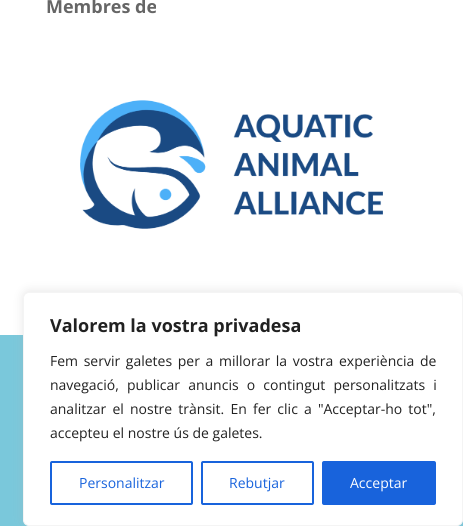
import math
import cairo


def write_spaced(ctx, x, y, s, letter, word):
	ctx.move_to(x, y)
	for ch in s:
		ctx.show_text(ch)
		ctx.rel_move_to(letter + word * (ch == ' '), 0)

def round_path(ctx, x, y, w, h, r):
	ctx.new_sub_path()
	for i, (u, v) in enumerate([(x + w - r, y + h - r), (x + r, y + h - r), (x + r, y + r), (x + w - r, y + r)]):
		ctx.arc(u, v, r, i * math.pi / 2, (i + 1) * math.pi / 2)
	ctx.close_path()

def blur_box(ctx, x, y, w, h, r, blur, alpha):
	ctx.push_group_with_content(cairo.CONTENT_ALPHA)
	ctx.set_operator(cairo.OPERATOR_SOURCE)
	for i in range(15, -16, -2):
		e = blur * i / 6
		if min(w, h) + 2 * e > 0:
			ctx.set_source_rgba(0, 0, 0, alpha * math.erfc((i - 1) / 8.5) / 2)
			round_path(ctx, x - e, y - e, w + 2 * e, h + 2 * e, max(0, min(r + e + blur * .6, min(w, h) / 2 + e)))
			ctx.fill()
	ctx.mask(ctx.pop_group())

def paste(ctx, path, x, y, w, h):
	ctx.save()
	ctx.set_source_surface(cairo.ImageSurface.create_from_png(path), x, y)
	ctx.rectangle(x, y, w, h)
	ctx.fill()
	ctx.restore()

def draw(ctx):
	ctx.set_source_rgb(1, 1, 1)
	ctx.paint()
	ctx.select_font_face('Open Sans', cairo.FONT_SLANT_NORMAL, cairo.FONT_WEIGHT_BOLD)
	ctx.set_font_size(18)
	ctx.set_source_rgb(0.4, 0.4, 0.4)
	ctx.move_to(46, 13)
	ctx.show_text('Membres de')
	paste(ctx, 'media/1.png', 80, 100, 303, 129)
	ctx.set_source_rgb(0.478, 0.784, 0.859)
	ctx.rectangle(0, 335, 463, 191)
	ctx.fill()
	ctx.set_source_rgb(0.675, 0.671, 0.671)
	blur_box(ctx, 23, 291, 440, 234, 6, 5, 0.3)
	ctx.set_source_rgb(1, 1, 1)
	round_path(ctx, 23.5, 292.5, 439, 233, 5.5)
	ctx.fill_preserve()
	ctx.set_source_rgb(0.957, 0.957, 0.957)
	ctx.set_line_width(1)
	ctx.stroke()
	ctx.set_source_rgb(0.129, 0.129, 0.129)
	ctx.move_to(50, 332)
	ctx.show_text('Valorem la vostra privadesa')
	ctx.select_font_face('Open Sans')
	ctx.set_font_size(14)
	write_spaced(ctx, 50, 366, 'Fem servir galetes per a millorar la vostra experiència de', 0, 2)
	write_spaced(ctx, 50, 390, 'navegació, publicar anuncis o contingut personalitzats i', 0, 4.5)
	write_spaced(ctx, 50, 414, 'analitzar el nostre trànsit. En fer clic a "Acceptar-ho tot",', 0, 2.5)
	ctx.move_to(50, 438)
	ctx.show_text('accepteu el nostre ús de galetes.')
	round_path(ctx, 51, 462, 141, 42, 1)
	ctx.set_source_rgb(0.094, 0.388, 0.863)
	ctx.set_line_width(2)
	ctx.stroke()
	ctx.move_to(79, 488)
	ctx.show_text('Personalitzar')
	round_path(ctx, 202, 462, 111, 42, 1)
	ctx.stroke()
	ctx.move_to(229, 488)
	ctx.show_text('Rebutjar')
	round_path(ctx, 323, 462, 112, 42, 1)
	ctx.fill_preserve()
	ctx.stroke()
	ctx.set_source_rgb(1, 1, 1)
	ctx.move_to(350, 488)
	ctx.show_text('Acceptar')


surface = cairo.ImageSurface(cairo.FORMAT_RGB24, 463, 526)
ctx = cairo.Context(surface)
options = cairo.FontOptions()
options.set_hint_metrics(cairo.HINT_METRICS_OFF)
options.set_hint_style(cairo.HINT_STYLE_NONE)
ctx.set_font_options(options)
ctx.set_miter_limit(4)
draw(ctx)
surface.write_to_png('image.png')
